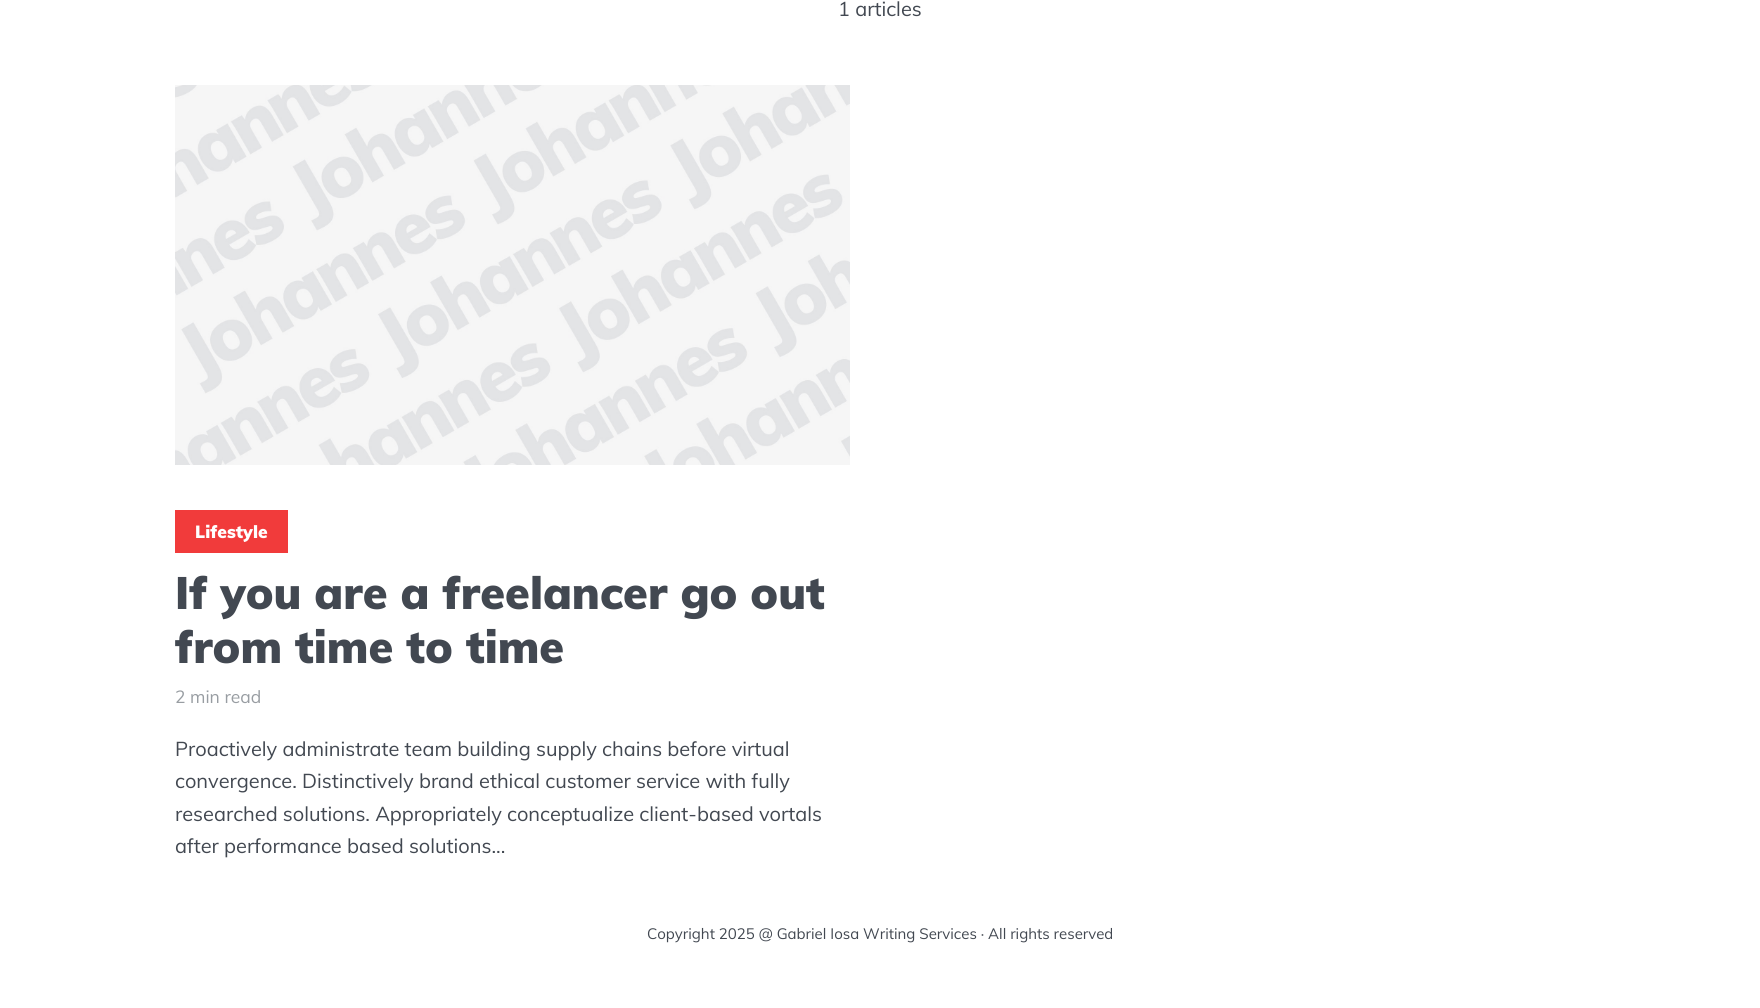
import math
import cairo


def paste(ctx, path, x, y, w, h):
	ctx.save()
	ctx.set_source_surface(cairo.ImageSurface.create_from_png(path), x, y)
	ctx.rectangle(x, y, w, h)
	ctx.fill()
	ctx.restore()

def draw(ctx):
	ctx.set_source_rgb(1, 1, 1)
	ctx.paint()
	ctx.select_font_face('Muli')
	ctx.set_font_size(20)
	ctx.set_source_rgb(0.259, 0.282, 0.318)
	ctx.move_to(838, 16)
	ctx.show_text('1 articles')
	paste(ctx, 'media/1.png', 175, 85, 675, 380)
	ctx.set_source_rgb(0.945, 0.231, 0.231)
	ctx.rectangle(175, 510, 113, 43)
	ctx.fill()
	ctx.select_font_face('Muli Black')
	ctx.set_font_size(17.5)
	ctx.set_source_rgb(1, 1, 1)
	ctx.move_to(195, 538)
	ctx.show_text('Lifestyle')
	ctx.set_font_size(45)
	ctx.set_source_rgb(0.259, 0.282, 0.318)
	ctx.move_to(175, 609)
	ctx.show_text('If you are a freelancer go out')
	ctx.move_to(175, 663)
	ctx.show_text('from time to time')
	ctx.select_font_face('Muli')
	ctx.set_font_size(17.5)
	ctx.set_source_rgb(0.596, 0.616, 0.635)
	ctx.move_to(175, 703)
	ctx.show_text('2 min read')
	ctx.set_font_size(20)
	ctx.set_source_rgb(0.259, 0.282, 0.318)
	for x, y, s in [
		(175, 756, 'Proactively administrate team building supply chains before virtual'),
		(175, 788, 'convergence. Distinctively brand ethical customer service with fully'),
		(175, 821, 'researched solutions. Appropriately conceptualize client-based vortals'),
		(175, 853, 'after performance based solutions...'),
	]:
		ctx.move_to(x, y)
		ctx.show_text(s)
	ctx.set_font_size(15)
	ctx.move_to(647, 939)
	ctx.show_text('Copyright 2025 @ Gabriel Iosa Writing Services · All rights reserved')


surface = cairo.ImageSurface(cairo.FORMAT_RGB24, 1760, 1008)
ctx = cairo.Context(surface)
options = cairo.FontOptions()
options.set_hint_metrics(cairo.HINT_METRICS_OFF)
options.set_hint_style(cairo.HINT_STYLE_NONE)
ctx.set_font_options(options)
ctx.set_miter_limit(4)
draw(ctx)
surface.write_to_png('image.png')
